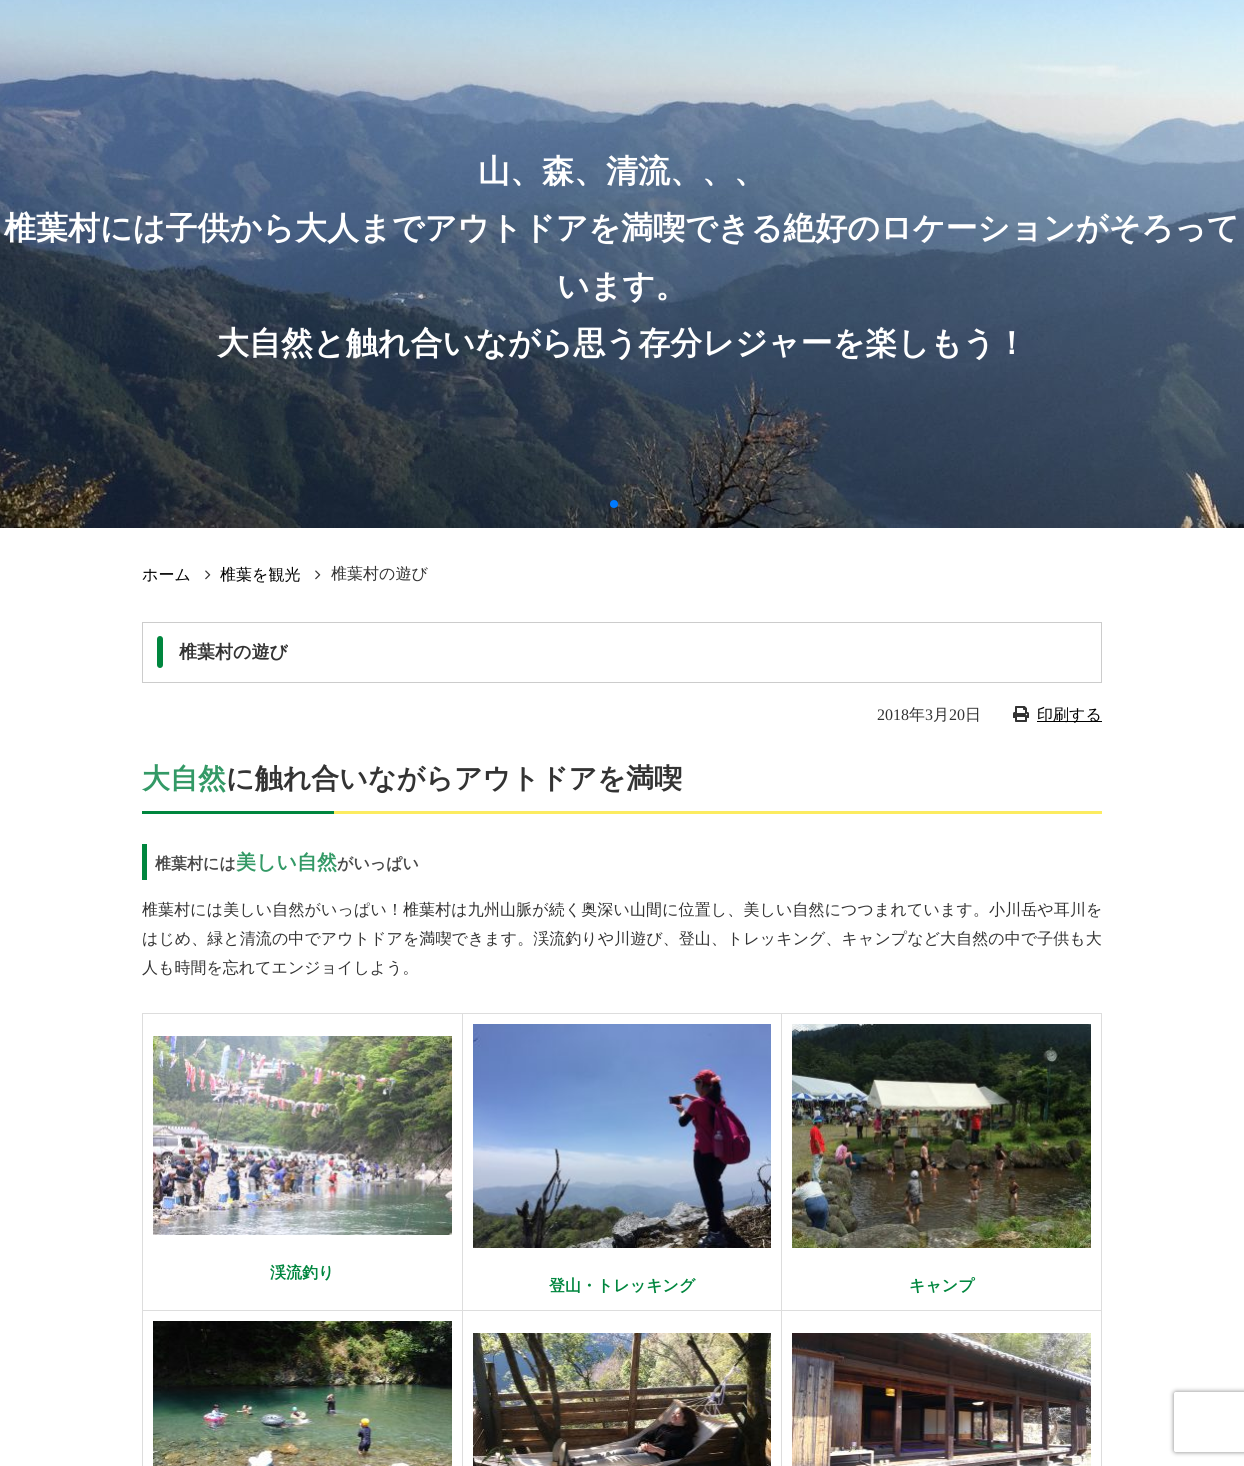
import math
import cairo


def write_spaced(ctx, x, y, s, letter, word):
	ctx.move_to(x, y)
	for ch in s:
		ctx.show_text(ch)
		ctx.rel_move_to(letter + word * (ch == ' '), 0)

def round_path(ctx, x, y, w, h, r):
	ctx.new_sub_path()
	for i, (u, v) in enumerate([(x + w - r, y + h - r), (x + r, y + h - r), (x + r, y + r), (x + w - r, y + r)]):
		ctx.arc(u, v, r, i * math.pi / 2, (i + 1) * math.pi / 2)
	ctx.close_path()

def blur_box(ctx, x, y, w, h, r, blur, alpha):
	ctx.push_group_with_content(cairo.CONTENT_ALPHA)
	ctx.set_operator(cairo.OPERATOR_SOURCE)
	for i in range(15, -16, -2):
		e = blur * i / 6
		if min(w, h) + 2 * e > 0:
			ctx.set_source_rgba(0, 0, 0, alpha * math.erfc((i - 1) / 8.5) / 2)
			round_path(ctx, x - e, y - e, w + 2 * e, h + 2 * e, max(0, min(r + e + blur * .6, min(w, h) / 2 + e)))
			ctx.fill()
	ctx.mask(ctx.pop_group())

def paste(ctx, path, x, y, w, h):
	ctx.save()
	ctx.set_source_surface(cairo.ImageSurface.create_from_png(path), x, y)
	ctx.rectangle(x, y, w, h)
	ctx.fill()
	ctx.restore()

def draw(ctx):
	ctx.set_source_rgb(1, 1, 1)
	ctx.paint()
	paste(ctx, 'media/1.png', 0, 0, 1244, 528)
	ctx.select_font_face('WenQuanYi Zen Hei', cairo.FONT_SLANT_NORMAL, cairo.FONT_WEIGHT_BOLD)
	ctx.set_font_size(32)
	ctx.set_source_rgb(1, 1, 1)
	for x, y, s in [
		(478, 182, '山、森、清流、、、'),
		(4, 239, '椎葉村には子供から大人までアウトドアを満喫できる絶好のロケーションがそろって'),
		(557, 297, 'います。'),
		(217, 354, '大自然と触れ合いながら思う存分レジャーを楽しもう！'),
	]:
		ctx.move_to(x, y)
		ctx.show_text(s)
	ctx.set_source_rgb(0, 0.478, 1)
	ctx.new_path()
	ctx.arc(614, 504, 4, 0, 2 * math.pi)
	ctx.fill()
	ctx.set_source_rgba(0, 0, 0, 0.2)
	ctx.arc(630, 504, 4, 0, 2 * math.pi)
	ctx.fill()
	ctx.select_font_face('WenQuanYi Zen Hei Medium')
	ctx.set_font_size(16)
	ctx.set_source_rgb(0, 0, 0)
	ctx.move_to(142, 580)
	ctx.show_text('ホーム')
	paste(ctx, 'media/2.png', 205, 570, 6, 10)
	ctx.move_to(220, 580)
	ctx.show_text('椎葉を観光')
	paste(ctx, 'media/2.png', 315, 570, 6, 10)
	ctx.set_source_rgb(0.2, 0.2, 0.2)
	ctx.move_to(331, 579)
	ctx.show_text('椎葉村の遊び')
	ctx.rectangle(142.5, 622.5, 959, 60)
	ctx.set_source_rgb(0.8, 0.8, 0.8)
	ctx.set_line_width(1)
	ctx.stroke()
	ctx.set_source_rgb(0, 0.525, 0.243)
	round_path(ctx, 157, 636, 6, 32, 3)
	ctx.fill()
	ctx.select_font_face('WenQuanYi Zen Hei', cairo.FONT_SLANT_NORMAL, cairo.FONT_WEIGHT_BOLD)
	ctx.set_font_size(18)
	ctx.set_source_rgb(0.2, 0.2, 0.2)
	ctx.move_to(179, 658)
	ctx.show_text('椎葉村の遊び')
	ctx.select_font_face('Liberation Serif')
	ctx.set_font_size(16)
	ctx.move_to(877, 720)
	ctx.show_text('2018')
	ctx.select_font_face('WenQuanYi Zen Hei Medium')
	ctx.move_to(909, 720)
	ctx.show_text('年')
	ctx.select_font_face('Liberation Serif')
	ctx.move_to(925, 720)
	ctx.show_text('3')
	ctx.select_font_face('WenQuanYi Zen Hei Medium')
	ctx.move_to(933, 720)
	ctx.show_text('月')
	ctx.select_font_face('Liberation Serif')
	ctx.move_to(949, 720)
	ctx.show_text('20')
	ctx.select_font_face('WenQuanYi Zen Hei Medium')
	ctx.move_to(965, 720)
	ctx.show_text('日')
	paste(ctx, 'media/3.png', 1013, 706, 16, 16)
	ctx.set_source_rgb(0, 0, 0)
	ctx.rectangle(1037, 721, 65, 1)
	ctx.fill()
	ctx.move_to(1037, 720)
	ctx.show_text('印刷する')
	ctx.set_source_rgb(0.988, 0.922, 0.376)
	ctx.rectangle(334, 811, 768, 3)
	ctx.fill()
	ctx.select_font_face('WenQuanYi Zen Hei', cairo.FONT_SLANT_NORMAL, cairo.FONT_WEIGHT_BOLD)
	ctx.set_font_size(28)
	ctx.set_source_rgb(0.2, 0.6, 0.4)
	ctx.move_to(142, 788)
	ctx.show_text('大自然')
	ctx.set_source_rgb(0.2, 0.2, 0.2)
	ctx.move_to(226, 788)
	ctx.show_text('に触れ合いながらアウトドアを満喫')
	ctx.set_source_rgb(0, 0.525, 0.243)
	ctx.rectangle(142, 811, 192, 3)
	ctx.fill()
	ctx.rectangle(142, 844, 5, 36)
	ctx.fill()
	ctx.set_font_size(16)
	ctx.set_source_rgb(0.286, 0.286, 0.286)
	ctx.move_to(155, 869)
	ctx.show_text('椎葉村には')
	ctx.set_font_size(20)
	ctx.set_source_rgb(0.2, 0.6, 0.4)
	ctx.move_to(236, 869)
	ctx.show_text('美しい自然')
	ctx.set_font_size(16)
	ctx.set_source_rgb(0.286, 0.286, 0.286)
	ctx.move_to(337, 869)
	ctx.show_text('がいっぱい')
	ctx.select_font_face('WenQuanYi Zen Hei Medium')
	ctx.set_source_rgb(0.2, 0.2, 0.2)
	write_spaced(ctx, 142, 915, '椎葉村には美しい自然がいっぱい！椎葉村は九州山脈が続く奥深い山間に位置し、美しい自然につつまれています。小川岳や耳川を', 0.1, 0)
	write_spaced(ctx, 142, 944, 'はじめ、緑と清流の中でアウトドアを満喫できます。渓流釣りや川遊び、登山、トレッキング、キャンプなど大自然の中で子供も大', 0.05, 0)
	ctx.move_to(142, 973)
	ctx.show_text('人も時間を忘れてエンジョイしよう。')
	ctx.set_source_rgb(0.867, 0.867, 0.867)
	ctx.rectangle(781, 1013, 321, 1)
	ctx.rectangle(781, 1310, 321, 1)
	ctx.rectangle(781, 1310, 1, 156)
	ctx.rectangle(462, 1310, 320, 1)
	ctx.rectangle(781, 1013, 1, 298)
	ctx.rectangle(462, 1013, 320, 1)
	ctx.rectangle(462, 1310, 1, 156)
	ctx.rectangle(142, 1310, 321, 1)
	ctx.rectangle(462, 1013, 1, 298)
	ctx.rectangle(142, 1013, 321, 1)
	ctx.rectangle(142, 1310, 1, 156)
	ctx.rectangle(142, 1013, 1, 298)
	ctx.fill()
	paste(ctx, 'media/4.png', 153, 1036, 299, 199)
	ctx.select_font_face('WenQuanYi Zen Hei', cairo.FONT_SLANT_NORMAL, cairo.FONT_WEIGHT_BOLD)
	ctx.set_source_rgb(0, 0.525, 0.243)
	ctx.move_to(270, 1278)
	ctx.show_text('渓流釣り')
	paste(ctx, 'media/5.png', 473, 1024, 298, 224)
	ctx.move_to(549, 1291)
	ctx.show_text('登山・トレッキング')
	ctx.set_source_rgb(0.867, 0.867, 0.867)
	ctx.rectangle(1101, 1310, 1, 156)
	ctx.fill()
	ctx.rectangle(1101, 1013, 1, 298)
	ctx.fill()
	paste(ctx, 'media/6.png', 792, 1024, 299, 224)
	ctx.set_source_rgb(0, 0.525, 0.243)
	ctx.move_to(909, 1291)
	ctx.show_text('キャンプ')
	paste(ctx, 'media/7.png', 153, 1321, 299, 145)
	paste(ctx, 'media/8.png', 473, 1333, 298, 133)
	paste(ctx, 'media/9.png', 792, 1333, 299, 133)
	ctx.save()
	ctx.set_fill_rule(cairo.FILL_RULE_EVEN_ODD)
	ctx.new_path()
	ctx.move_to(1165, 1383)
	ctx.line_to(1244, 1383)
	ctx.line_to(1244, 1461)
	ctx.line_to(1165, 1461)
	ctx.close_path()
	ctx.move_to(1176, 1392)
	ctx.line_to(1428, 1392)
	ctx.curve_to(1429, 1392, 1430, 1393, 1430, 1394)
	ctx.line_to(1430, 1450)
	ctx.curve_to(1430, 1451, 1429, 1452, 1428, 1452)
	ctx.line_to(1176, 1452)
	ctx.curve_to(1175, 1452, 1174, 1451, 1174, 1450)
	ctx.line_to(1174, 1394)
	ctx.curve_to(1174, 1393, 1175, 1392, 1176, 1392)
	ctx.close_path()
	ctx.clip()
	ctx.set_source_rgb(0.502, 0.502, 0.502)
	blur_box(ctx, 1174, 1392, 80, 60, 2, 2.5, 1)
	ctx.restore()


surface = cairo.ImageSurface(cairo.FORMAT_RGB24, 1244, 1466)
ctx = cairo.Context(surface)
options = cairo.FontOptions()
options.set_hint_metrics(cairo.HINT_METRICS_OFF)
options.set_hint_style(cairo.HINT_STYLE_NONE)
ctx.set_font_options(options)
ctx.set_miter_limit(4)
draw(ctx)
surface.write_to_png('image.png')
